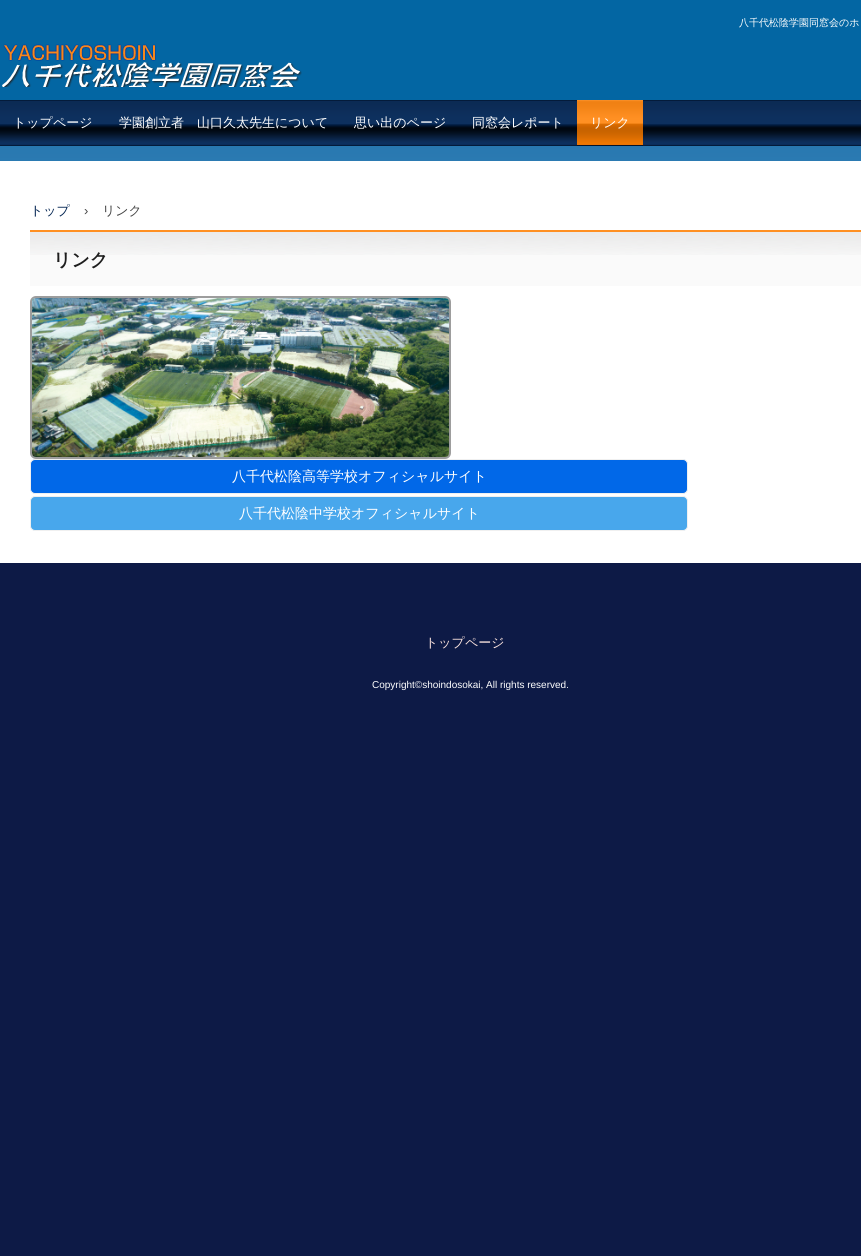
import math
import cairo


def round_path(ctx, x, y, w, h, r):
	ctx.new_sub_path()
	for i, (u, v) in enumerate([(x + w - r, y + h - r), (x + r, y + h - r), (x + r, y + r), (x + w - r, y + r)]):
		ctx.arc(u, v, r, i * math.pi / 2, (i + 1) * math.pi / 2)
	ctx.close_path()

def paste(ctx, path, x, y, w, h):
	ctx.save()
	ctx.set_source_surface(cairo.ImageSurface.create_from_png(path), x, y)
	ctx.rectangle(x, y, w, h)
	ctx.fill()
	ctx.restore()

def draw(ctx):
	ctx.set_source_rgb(0.051, 0.102, 0.275)
	ctx.paint()
	gradient = cairo.LinearGradient(430, 0, 431, 736)
	gradient.add_color_stop_rgba(0, 0.067, 0.396, 0.627, 1)
	gradient.add_color_stop_rgba(1, 0.525, 0.773, 0.949, 1)
	ctx.set_source(gradient)
	ctx.rectangle(0, 146, 861, 15)
	ctx.fill()
	ctx.set_source_rgb(0.012, 0.4, 0.639)
	ctx.rectangle(0, 0, 861, 100)
	ctx.fill()
	ctx.select_font_face('WenQuanYi Zen Hei Medium')
	ctx.set_font_size(10)
	ctx.set_source_rgb(1, 1, 1)
	ctx.move_to(739, 26)
	ctx.show_text('八千代松陰学園同窓会のホ')
	paste(ctx, 'media/1.png', 2, 44, 300, 43)
	paste(ctx, 'media/2.png', 0, 100, 861, 46)
	ctx.set_font_size(13)
	for x, y, s in [
		(13, 127, 'トップページ'),
		(119, 127, '学園創立者　山口久太先生について'),
		(354, 127, '思い出のページ'),
		(472, 127, '同窓会レポート'),
	]:
		ctx.move_to(x, y)
		ctx.show_text(s)
	ctx.set_source_rgba(0, 0, 0, 0.3)
	ctx.rectangle(577, 145, 66, 1)
	ctx.fill()
	paste(ctx, 'media/3.png', 577, 100, 66, 45)
	ctx.set_source_rgb(1, 1, 1)
	ctx.move_to(590, 127)
	ctx.show_text('リンク')
	ctx.rectangle(0, 161, 861, 402)
	ctx.fill()
	ctx.set_source_rgb(0.008, 0.141, 0.318)
	ctx.move_to(30, 215)
	ctx.show_text('トップ')
	ctx.select_font_face('Liberation Sans')
	ctx.set_source_rgb(0.267, 0.267, 0.267)
	ctx.move_to(84, 215)
	ctx.show_text('›')
	ctx.select_font_face('WenQuanYi Zen Hei Medium')
	ctx.move_to(102, 215)
	ctx.show_text('リンク')
	ctx.set_source_rgb(0.98, 0.98, 0.98)
	ctx.rectangle(30, 255, 831, 31)
	ctx.fill()
	paste(ctx, 'media/4.png', 30, 232, 831, 23)
	ctx.set_source_rgb(1, 0.565, 0.137)
	ctx.rectangle(30, 230, 831, 2)
	ctx.fill()
	ctx.select_font_face('WenQuanYi Zen Hei', cairo.FONT_SLANT_NORMAL, cairo.FONT_WEIGHT_BOLD)
	ctx.set_font_size(18)
	ctx.set_source_rgb(0.118, 0.118, 0.118)
	ctx.move_to(53, 266)
	ctx.show_text('リンク')
	round_path(ctx, 31, 297, 419, 161, 5)
	ctx.set_source_rgb(0.616, 0.616, 0.616)
	ctx.stroke()
	paste(ctx, 'media/5.png', 32, 298, 417, 159)
	ctx.set_source_rgb(0.004, 0.408, 0.91)
	round_path(ctx, 30.5, 459.5, 657, 34, 4.5)
	ctx.fill_preserve()
	ctx.set_source_rgb(0.941, 0.941, 0.941)
	ctx.set_line_width(1)
	ctx.stroke()
	ctx.select_font_face('WenQuanYi Zen Hei Medium')
	ctx.set_font_size(14)
	ctx.set_source_rgb(1, 1, 1)
	ctx.move_to(232, 481)
	ctx.show_text('八千代松陰高等学校オフィシャルサイト')
	ctx.set_source_rgb(0.282, 0.655, 0.925)
	round_path(ctx, 30.5, 496.5, 657, 34, 4.5)
	ctx.fill_preserve()
	ctx.set_source_rgb(0.941, 0.941, 0.941)
	ctx.stroke()
	ctx.set_source_rgb(1, 1, 1)
	ctx.move_to(239, 518)
	ctx.show_text('八千代松陰中学校オフィシャルサイト')
	ctx.set_font_size(13)
	ctx.set_source_rgb(0.984, 0.894, 0.871)
	ctx.move_to(425, 647)
	ctx.show_text('トップページ')
	ctx.select_font_face('Liberation Sans')
	ctx.set_font_size(10)
	ctx.set_source_rgb(1, 1, 1)
	ctx.move_to(372, 688)
	ctx.show_text('Copyright©shoindosokai, All rights reserved.')


surface = cairo.ImageSurface(cairo.FORMAT_RGB24, 861, 1256)
ctx = cairo.Context(surface)
options = cairo.FontOptions()
options.set_hint_metrics(cairo.HINT_METRICS_OFF)
options.set_hint_style(cairo.HINT_STYLE_NONE)
ctx.set_font_options(options)
ctx.set_miter_limit(4)
draw(ctx)
surface.write_to_png('image.png')
